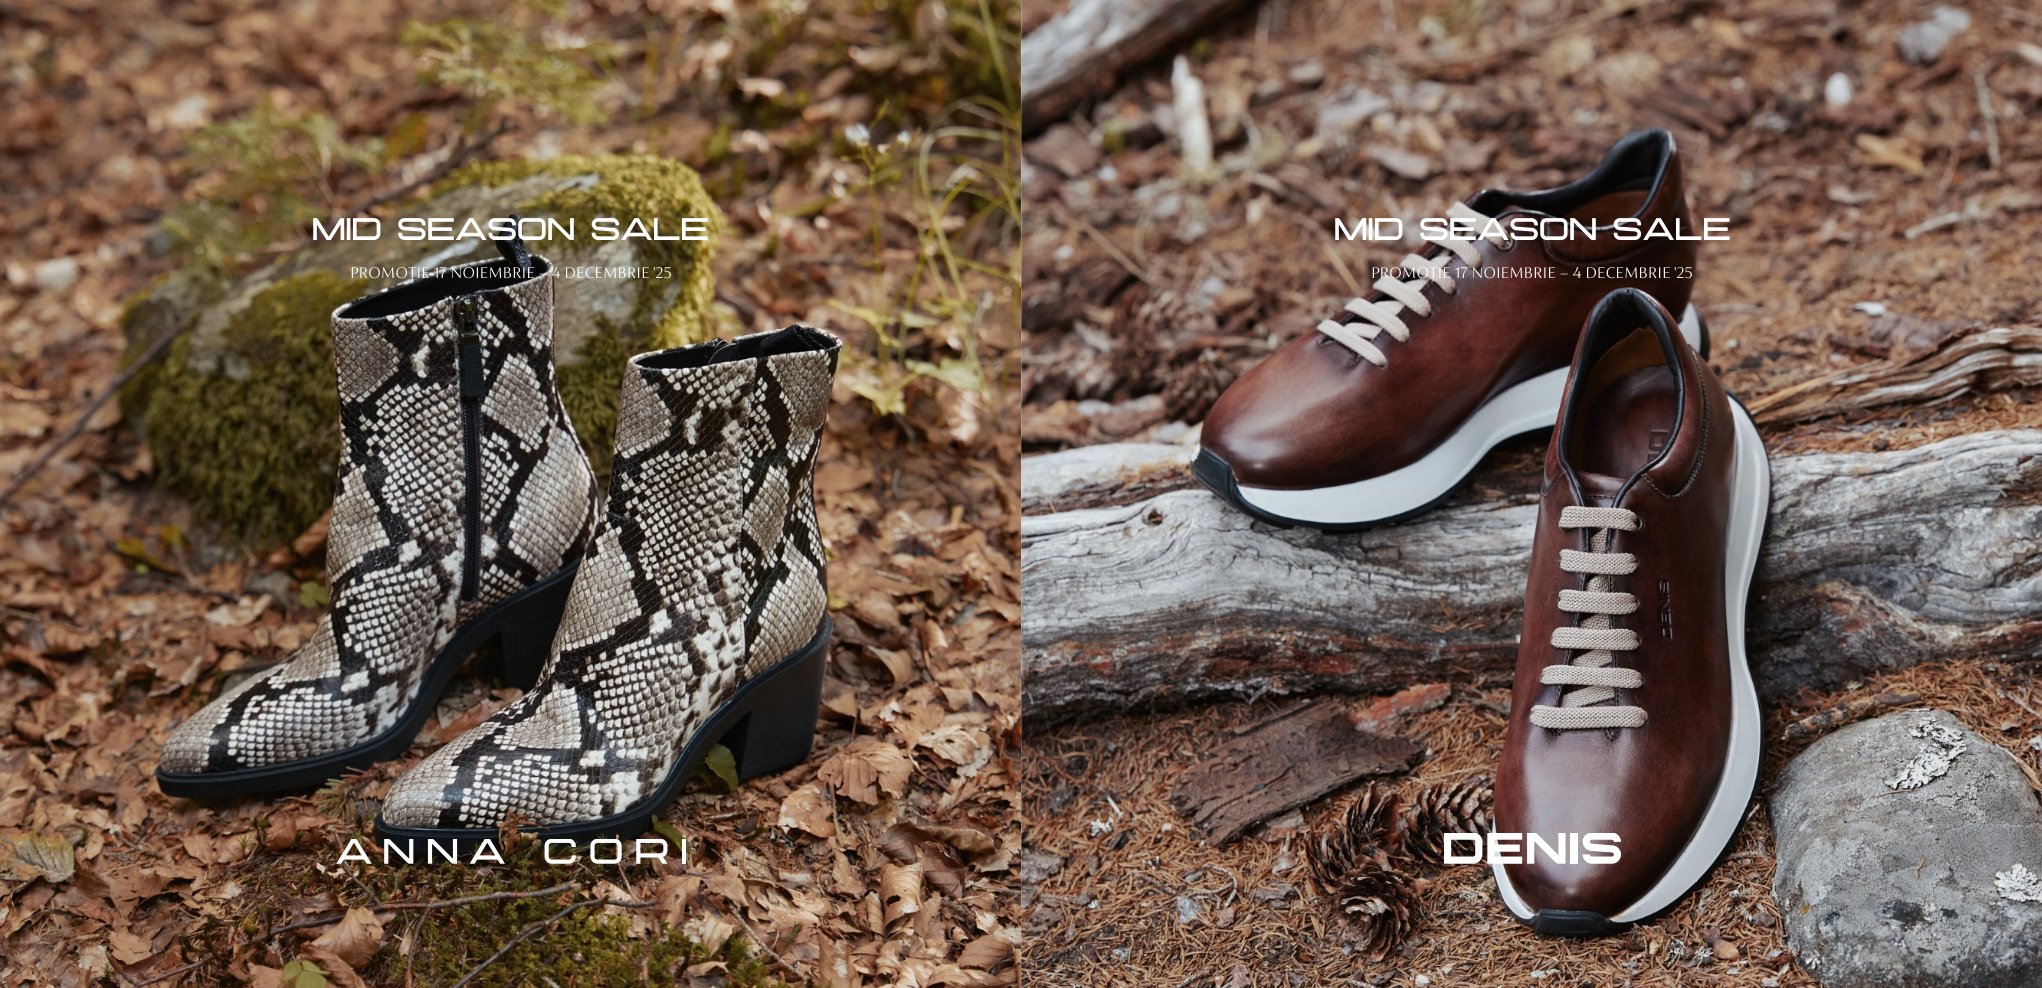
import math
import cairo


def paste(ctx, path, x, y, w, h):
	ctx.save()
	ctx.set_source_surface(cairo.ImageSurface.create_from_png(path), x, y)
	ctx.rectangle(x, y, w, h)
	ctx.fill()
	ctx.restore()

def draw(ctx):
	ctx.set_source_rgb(1, 1, 1)
	ctx.paint()
	paste(ctx, 'media/1.png', 0, 0, 1022, 988)
	ctx.select_font_face('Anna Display')
	ctx.set_font_size(31.25)
	ctx.set_source_rgb(1, 1, 1)
	ctx.move_to(312, 240)
	ctx.show_text('MID SEASON SALE')
	ctx.select_font_face('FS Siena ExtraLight')
	ctx.set_font_size(17.5)
	ctx.move_to(350, 278)
	ctx.show_text('PROMOȚIE 17 NOIEMBRIE – 4 DECEMBRIE \'25')
	paste(ctx, 'media/2.png', 336, 839, 350, 25)
	paste(ctx, 'media/3.png', 1021, 0, 1021, 988)
	ctx.select_font_face('Anna Display')
	ctx.set_font_size(31.25)
	ctx.move_to(1334, 240)
	ctx.show_text('MID SEASON SALE')
	ctx.select_font_face('FS Siena ExtraLight')
	ctx.set_font_size(17.5)
	ctx.move_to(1371, 278)
	ctx.show_text('PROMOȚIE 17 NOIEMBRIE – 4 DECEMBRIE \'25')
	paste(ctx, 'media/4.png', 1444, 833, 177, 31)


surface = cairo.ImageSurface(cairo.FORMAT_RGB24, 2042, 988)
ctx = cairo.Context(surface)
options = cairo.FontOptions()
options.set_hint_metrics(cairo.HINT_METRICS_OFF)
options.set_hint_style(cairo.HINT_STYLE_NONE)
ctx.set_font_options(options)
ctx.set_miter_limit(4)
draw(ctx)
surface.write_to_png('image.png')
